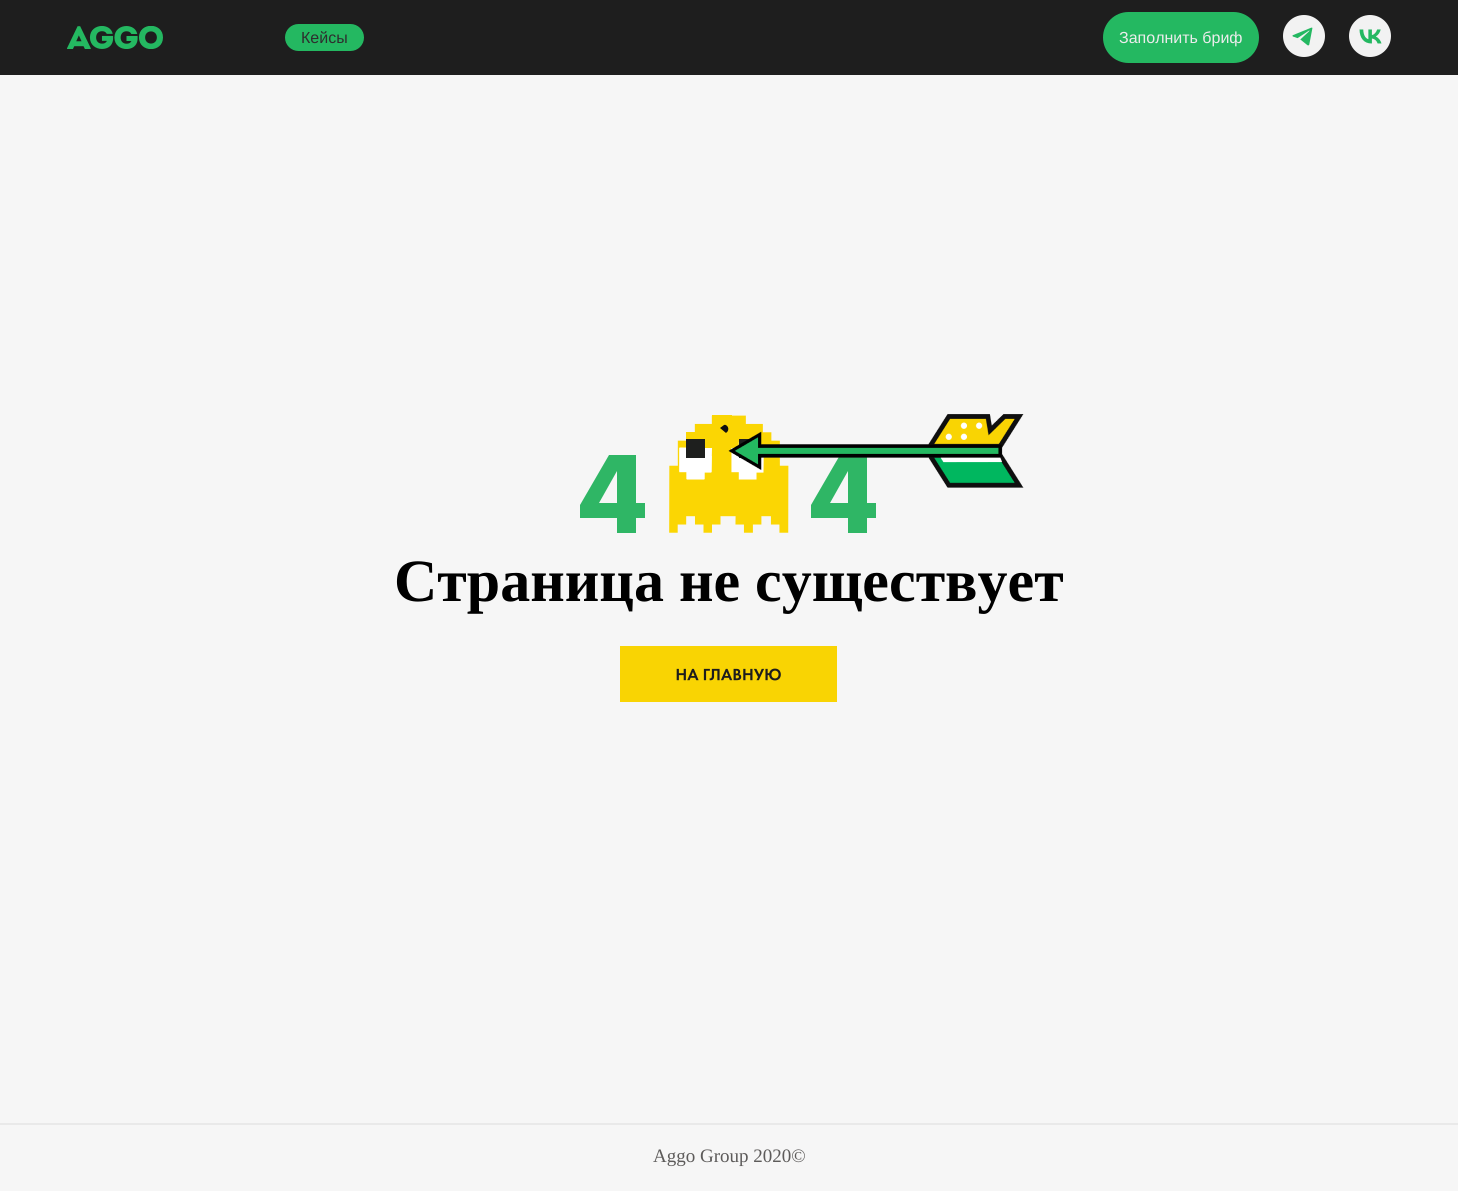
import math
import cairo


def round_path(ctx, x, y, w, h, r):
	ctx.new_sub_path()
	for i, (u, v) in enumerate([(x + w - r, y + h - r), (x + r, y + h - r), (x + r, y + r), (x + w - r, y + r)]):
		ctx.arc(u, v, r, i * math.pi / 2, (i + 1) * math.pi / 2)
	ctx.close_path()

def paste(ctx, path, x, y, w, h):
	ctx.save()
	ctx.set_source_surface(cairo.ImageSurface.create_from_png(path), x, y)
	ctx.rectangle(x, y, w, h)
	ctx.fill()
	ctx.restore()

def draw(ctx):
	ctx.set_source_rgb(0.961, 0.961, 0.961)
	ctx.paint()
	ctx.set_source_rgb(0.118, 0.118, 0.118)
	ctx.rectangle(0, 0, 1458, 75)
	ctx.fill()
	paste(ctx, 'media/1.png', 67, 26, 96, 23)
	ctx.set_source_rgb(0.141, 0.722, 0.38)
	round_path(ctx, 285, 24, 79, 27, 13.5)
	ctx.fill()
	ctx.select_font_face('Liberation Sans')
	ctx.set_font_size(16)
	ctx.set_source_rgb(0.18, 0.18, 0.18)
	ctx.move_to(301, 43)
	ctx.show_text('Кейсы')
	ctx.set_source_rgb(0.141, 0.722, 0.38)
	round_path(ctx, 1103, 12, 156, 51, 25.5)
	ctx.fill()
	ctx.set_source_rgb(0.922, 0.922, 0.922)
	ctx.move_to(1119, 43)
	ctx.show_text('Заполнить бриф')
	paste(ctx, 'media/2.png', 1283, 15, 42, 42)
	paste(ctx, 'media/3.png', 1349, 15, 42, 42)
	paste(ctx, 'media/5.png', 669, 415, 120, 118)
	ctx.set_source_rgb(0.984, 0.839, 0.012)
	ctx.new_path()
	ctx.move_to(724.5, 423)
	ctx.line_to(730, 437.5)
	ctx.line_to(701, 447.5)
	ctx.line_to(696, 433)
	ctx.close_path()
	ctx.fill()
	paste(ctx, 'media/6.png', 720, 424, 9, 9)
	ctx.set_source_rgb(0.118, 0.122, 0.118)
	ctx.rectangle(739, 439, 10, 19)
	ctx.fill()
	ctx.set_source_rgb(0.184, 0.714, 0.396)
	ctx.new_path()
	ctx.move_to(867, 455)
	ctx.line_to(840, 455)
	ctx.line_to(811, 505)
	ctx.line_to(811, 518)
	ctx.line_to(848, 518)
	ctx.line_to(848, 533)
	ctx.line_to(867, 533)
	ctx.line_to(867, 518)
	ctx.line_to(876, 518)
	ctx.line_to(876, 503)
	ctx.line_to(867, 503)
	ctx.close_path()
	ctx.move_to(830, 503)
	ctx.line_to(848, 471)
	ctx.line_to(848, 503)
	ctx.close_path()
	ctx.fill()
	paste(ctx, 'media/4.png', 728, 414, 296, 74)
	ctx.set_source_rgb(0.984, 0.839, 0.012)
	ctx.rectangle(683, 441, 29, 15)
	ctx.fill()
	ctx.set_fill_rule(cairo.FILL_RULE_EVEN_ODD)
	ctx.new_path()
	ctx.move_to(732, 419)
	ctx.line_to(732, 415)
	ctx.line_to(712, 415)
	ctx.line_to(712, 424)
	ctx.line_to(695, 424)
	ctx.line_to(695, 432)
	ctx.line_to(686, 432)
	ctx.line_to(686, 445)
	ctx.line_to(732, 445)
	ctx.line_to(732, 438)
	ctx.line_to(720, 428)
	ctx.close_path()
	ctx.fill()
	ctx.set_source_rgb(1, 1, 1)
	ctx.set_fill_rule(cairo.FILL_RULE_WINDING)
	ctx.new_path()
	ctx.move_to(686.5, 441.5)
	ctx.line_to(704.5, 441.5)
	ctx.line_to(704.5, 448)
	ctx.line_to(712, 448)
	ctx.line_to(711.5, 472)
	ctx.line_to(704.5, 472)
	ctx.line_to(704.5, 479)
	ctx.line_to(686.5, 479)
	ctx.line_to(686.5, 471.5)
	ctx.line_to(679.5, 471.5)
	ctx.line_to(679.5, 447.5)
	ctx.line_to(686.5, 447.5)
	ctx.close_path()
	ctx.fill()
	ctx.set_source_rgb(0.118, 0.122, 0.118)
	ctx.rectangle(686, 439, 19, 19)
	ctx.fill()
	ctx.set_source_rgb(0.184, 0.714, 0.396)
	ctx.new_path()
	ctx.move_to(636, 455)
	ctx.line_to(609, 455)
	ctx.line_to(580, 505)
	ctx.line_to(580, 518)
	ctx.line_to(617, 518)
	ctx.line_to(617, 533)
	ctx.line_to(636, 533)
	ctx.line_to(636, 518)
	ctx.line_to(645, 518)
	ctx.line_to(645, 503)
	ctx.line_to(636, 503)
	ctx.close_path()
	ctx.move_to(599, 503)
	ctx.line_to(617, 471)
	ctx.line_to(617, 503)
	ctx.close_path()
	ctx.fill()
	ctx.select_font_face('Liberation Serif', cairo.FONT_SLANT_NORMAL, cairo.FONT_WEIGHT_BOLD)
	ctx.set_font_size(60)
	ctx.set_source_rgb(0, 0, 0)
	ctx.move_to(394, 601)
	ctx.show_text('Страница не существует')
	paste(ctx, 'media/7.png', 620, 646, 217, 56)
	ctx.set_source_rgb(0.914, 0.914, 0.914)
	ctx.rectangle(0, 1123, 1458, 2)
	ctx.fill()
	ctx.select_font_face('Liberation Serif')
	ctx.set_font_size(19)
	ctx.set_source_rgb(0.365, 0.357, 0.353)
	ctx.move_to(653, 1162)
	ctx.show_text('Aggo Group 2020©')


surface = cairo.ImageSurface(cairo.FORMAT_RGB24, 1458, 1191)
ctx = cairo.Context(surface)
options = cairo.FontOptions()
options.set_hint_metrics(cairo.HINT_METRICS_OFF)
options.set_hint_style(cairo.HINT_STYLE_NONE)
ctx.set_font_options(options)
ctx.set_miter_limit(4)
draw(ctx)
surface.write_to_png('image.png')
